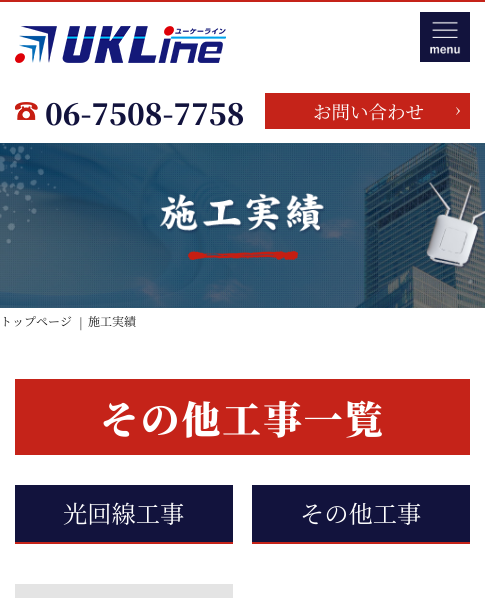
import math
import cairo


def write_spaced(ctx, x, y, s, letter, word):
	ctx.move_to(x, y)
	for ch in s:
		ctx.show_text(ch)
		ctx.rel_move_to(letter + word * (ch == ' '), 0)

def paste(ctx, path, x, y, w, h):
	ctx.save()
	ctx.set_source_surface(cairo.ImageSurface.create_from_png(path), x, y)
	ctx.rectangle(x, y, w, h)
	ctx.fill()
	ctx.restore()

def draw(ctx):
	ctx.set_source_rgb(1, 1, 1)
	ctx.paint()
	ctx.set_source_rgb(0.773, 0.137, 0.098)
	ctx.rectangle(0, 0, 485, 2)
	ctx.fill()
	paste(ctx, 'media/1.png', 15, 26, 211, 37)
	ctx.set_source_rgb(0.071, 0.078, 0.239)
	ctx.rectangle(420, 12, 50, 50)
	ctx.fill()
	paste(ctx, 'media/2.png', 430, 21, 31, 33)
	paste(ctx, 'media/3.png', 15, 102, 23, 18)
	ctx.select_font_face('Noto Serif JP Black')
	ctx.set_font_size(29)
	ctx.move_to(45, 125)
	ctx.show_text('06-7508-7758')
	ctx.set_source_rgb(0.773, 0.137, 0.098)
	ctx.rectangle(265, 93, 205, 36)
	ctx.fill()
	paste(ctx, 'media/4.png', 456, 107, 4, 8)
	ctx.select_font_face('Noto Serif JP')
	ctx.set_font_size(18.5)
	ctx.set_source_rgb(1, 1, 1)
	ctx.move_to(313, 119)
	ctx.show_text('お問い合わせ')
	paste(ctx, 'media/5.png', 0, 143, 485, 165)
	paste(ctx, 'media/6.png', 188, 251, 110, 9)
	paste(ctx, 'media/7.png', 159, 193, 166, 41)
	ctx.set_font_size(12)
	ctx.set_source_rgb(0.102, 0.102, 0.102)
	for x, y, s in [
		(0, 326, 'トップページ'),
		(79, 327, '|'),
		(88, 326, '施工実績'),
	]:
		ctx.move_to(x, y)
		ctx.show_text(s)
	ctx.set_source_rgb(0.773, 0.137, 0.098)
	ctx.rectangle(15, 379, 455, 76)
	ctx.fill()
	ctx.select_font_face('Noto Serif JP Black')
	ctx.set_font_size(38.75)
	ctx.set_source_rgb(1, 1, 1)
	write_spaced(ctx, 100, 434, 'その他工事一覧', 2, 0)
	ctx.set_source_rgb(0.071, 0.078, 0.239)
	ctx.rectangle(15, 485, 218, 57)
	ctx.fill()
	ctx.set_source_rgb(0.773, 0.137, 0.098)
	ctx.rectangle(15, 542, 218, 2)
	ctx.fill()
	ctx.select_font_face('Noto Serif JP')
	ctx.set_font_size(24.25)
	ctx.set_source_rgb(1, 1, 1)
	ctx.move_to(63, 523)
	ctx.show_text('光回線工事')
	ctx.set_source_rgb(0.071, 0.078, 0.239)
	ctx.rectangle(252, 485, 218, 57)
	ctx.fill()
	ctx.set_source_rgb(0.773, 0.137, 0.098)
	ctx.rectangle(252, 542, 218, 2)
	ctx.fill()
	ctx.set_source_rgb(1, 1, 1)
	ctx.move_to(300, 523)
	ctx.show_text('その他工事')
	ctx.set_source_rgb(0.894, 0.894, 0.894)
	ctx.rectangle(15, 584, 218, 14)
	ctx.fill()


surface = cairo.ImageSurface(cairo.FORMAT_RGB24, 485, 598)
ctx = cairo.Context(surface)
options = cairo.FontOptions()
options.set_hint_metrics(cairo.HINT_METRICS_OFF)
options.set_hint_style(cairo.HINT_STYLE_NONE)
ctx.set_font_options(options)
ctx.set_miter_limit(4)
draw(ctx)
surface.write_to_png('image.png')
